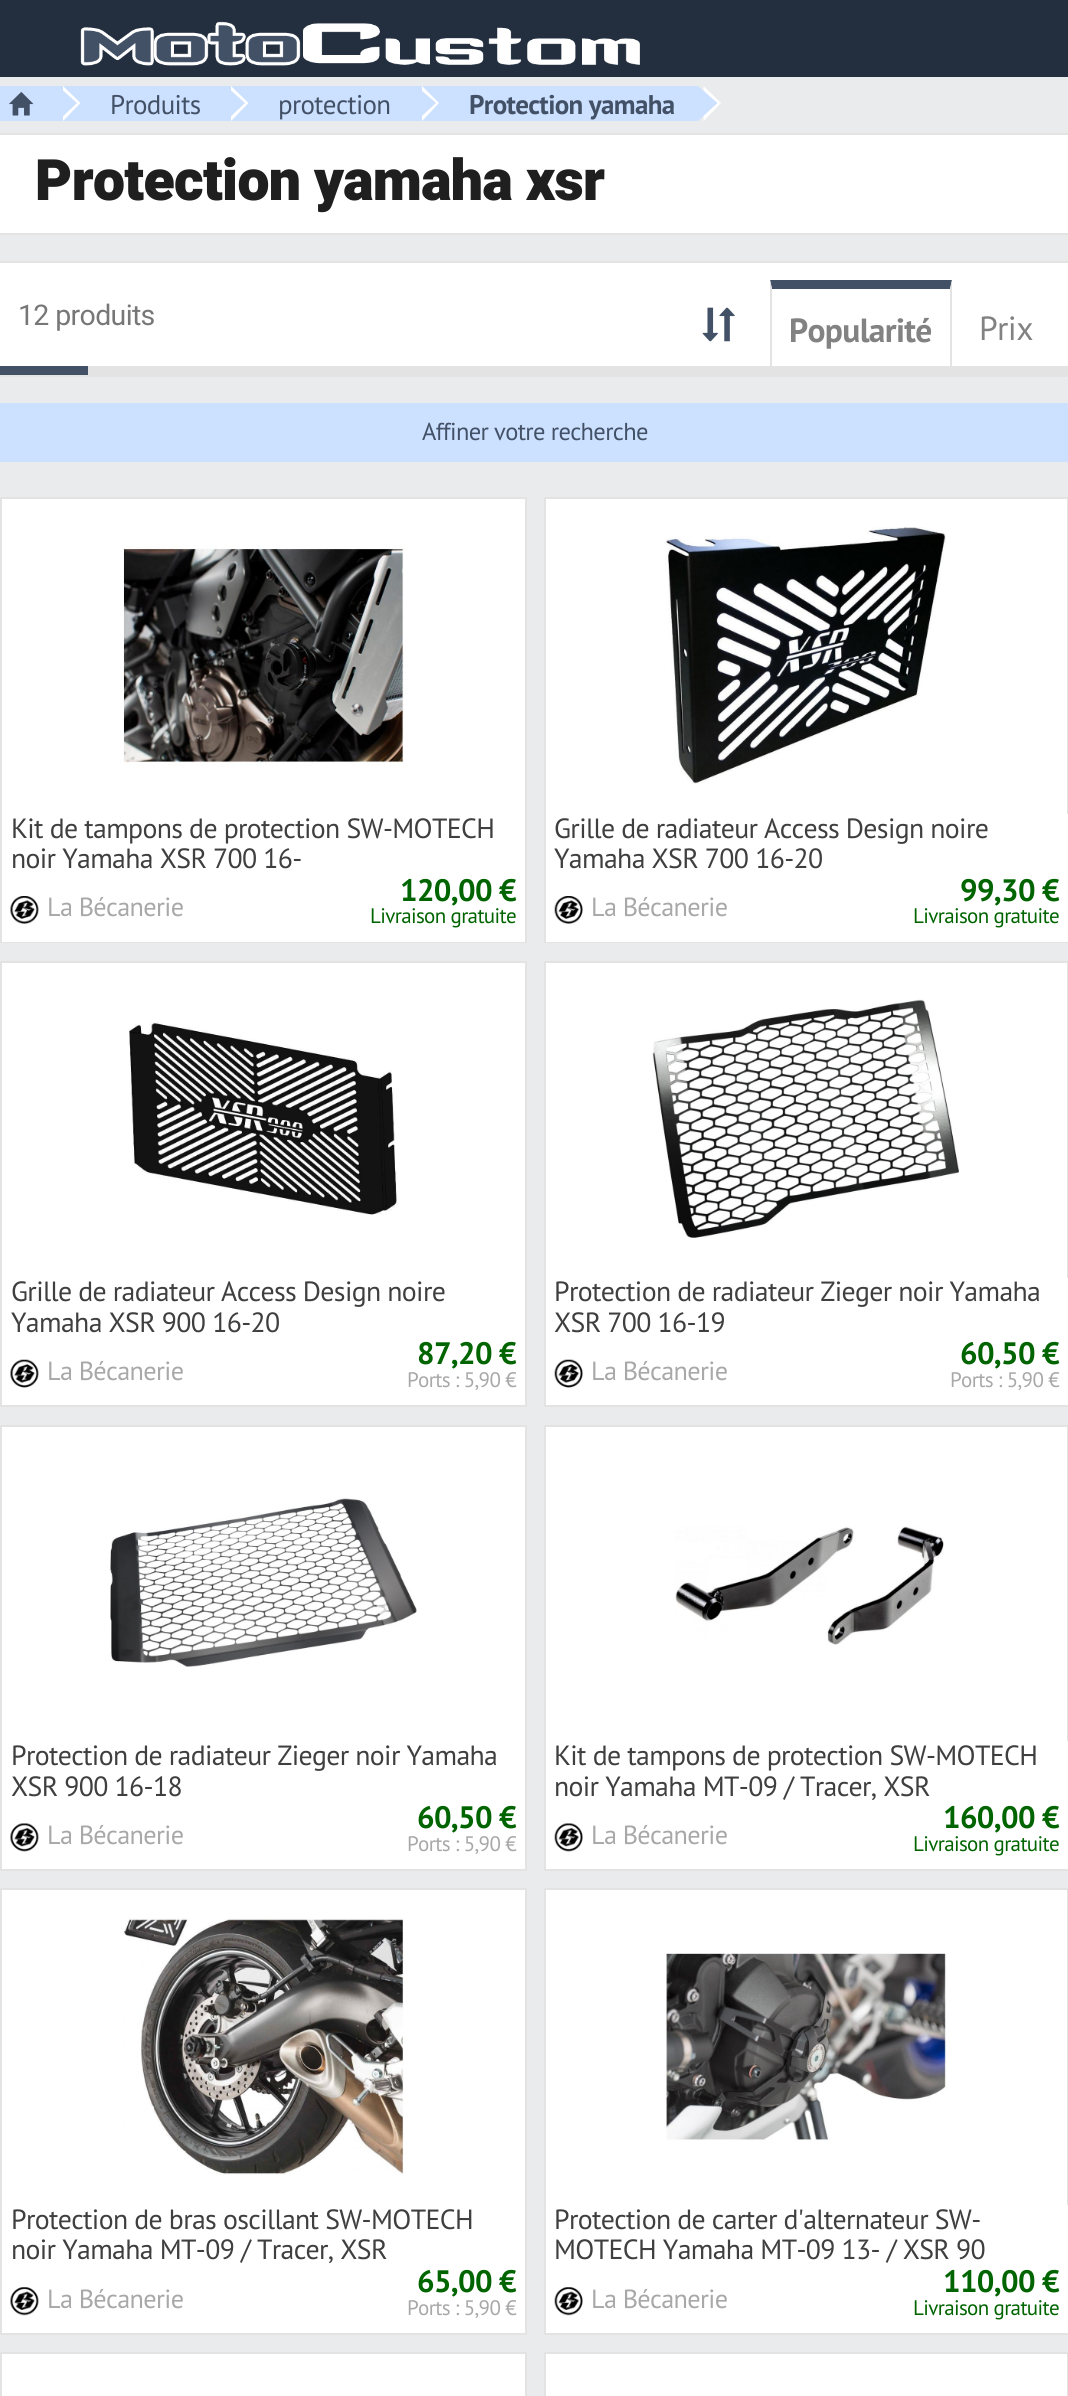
import math
import cairo


def write_spaced(ctx, x, y, s, letter, word):
	ctx.move_to(x, y)
	for ch in s:
		ctx.show_text(ch)
		ctx.rel_move_to(letter + word * (ch == ' '), 0)

def paste(ctx, path, x, y, w, h):
	ctx.save()
	ctx.set_source_surface(cairo.ImageSurface.create_from_png(path), x, y)
	ctx.rectangle(x, y, w, h)
	ctx.fill()
	ctx.restore()

def draw(ctx):
	ctx.set_source_rgb(0.914, 0.918, 0.929)
	ctx.paint()
	ctx.set_source_rgb(0.137, 0.184, 0.243)
	ctx.rectangle(0, 0, 1068, 77)
	ctx.fill()
	paste(ctx, 'media/1.png', 80, 21, 560, 45)
	ctx.set_source_rgb(0.8, 0.878, 1)
	ctx.rectangle(0, 86, 698, 35)
	ctx.fill()
	ctx.set_source_rgb(1, 1, 1)
	ctx.new_path()
	ctx.move_to(63, 121)
	ctx.line_to(63, 86)
	ctx.line_to(80.5, 103)
	ctx.close_path()
	ctx.fill()
	ctx.set_source_rgb(0.8, 0.878, 1)
	ctx.new_path()
	ctx.move_to(58, 121)
	ctx.line_to(58, 86)
	ctx.line_to(77, 103)
	ctx.close_path()
	ctx.fill()
	paste(ctx, 'media/2.png', 9, 92, 25, 24)
	ctx.set_source_rgb(1, 1, 1)
	ctx.new_path()
	ctx.move_to(231, 121)
	ctx.line_to(231, 86)
	ctx.line_to(248.5, 103)
	ctx.close_path()
	ctx.fill()
	ctx.set_source_rgb(0.8, 0.878, 1)
	ctx.new_path()
	ctx.move_to(226, 121)
	ctx.line_to(226, 86)
	ctx.line_to(245, 103)
	ctx.close_path()
	ctx.fill()
	ctx.select_font_face('PT Sans')
	ctx.set_font_size(27)
	ctx.set_source_rgb(0.263, 0.318, 0.404)
	write_spaced(ctx, 110, 114, 'Produits', -0.65, 0)
	ctx.set_source_rgb(1, 1, 1)
	ctx.new_path()
	ctx.move_to(422, 121)
	ctx.line_to(422, 86)
	ctx.line_to(439, 103)
	ctx.close_path()
	ctx.fill()
	ctx.set_source_rgb(0.8, 0.878, 1)
	ctx.new_path()
	ctx.move_to(416.5, 121)
	ctx.line_to(416.5, 86)
	ctx.line_to(436, 103)
	ctx.close_path()
	ctx.fill()
	ctx.set_source_rgb(0.263, 0.318, 0.404)
	write_spaced(ctx, 278, 114, 'protection', -0.65, 0)
	ctx.set_source_rgb(1, 1, 1)
	ctx.new_path()
	ctx.move_to(703.5, 121)
	ctx.line_to(703.5, 86)
	ctx.line_to(721, 103)
	ctx.close_path()
	ctx.fill()
	ctx.set_source_rgb(0.8, 0.878, 1)
	ctx.new_path()
	ctx.move_to(698, 121)
	ctx.line_to(698, 86)
	ctx.line_to(717.5, 103)
	ctx.close_path()
	ctx.fill()
	ctx.select_font_face('PT Sans', cairo.FONT_SLANT_NORMAL, cairo.FONT_WEIGHT_BOLD)
	ctx.set_source_rgb(0.263, 0.318, 0.404)
	write_spaced(ctx, 469, 114, 'Protection yamaha', -0.65, 0)
	ctx.set_source_rgb(1, 1, 1)
	ctx.rectangle(0, 135, 1068, 98)
	ctx.fill()
	ctx.set_source_rgb(0.89, 0.89, 0.89)
	ctx.rectangle(0, 133, 1068, 2)
	ctx.rectangle(0, 233, 1068, 2)
	ctx.fill()
	ctx.select_font_face('Heebo Black')
	ctx.set_font_size(57.1)
	ctx.set_source_rgb(0.122, 0.122, 0.122)
	write_spaced(ctx, 35, 200, 'Protection yamaha xsr', -0.65, 0)
	ctx.set_source_rgb(1, 1, 1)
	ctx.rectangle(0, 263, 1068, 103)
	ctx.fill()
	ctx.set_source_rgb(0.89, 0.89, 0.89)
	ctx.rectangle(0, 261, 1068, 2)
	ctx.rectangle(0, 375, 1068, 2)
	ctx.fill()
	ctx.select_font_face('Heebo')
	ctx.set_font_size(28.5)
	ctx.set_source_rgb(0.467, 0.467, 0.467)
	write_spaced(ctx, 18, 325, '12 produits', -0.65, 0)
	paste(ctx, 'media/3.png', 702, 307, 33, 35)
	ctx.set_source_rgb(0.263, 0.318, 0.404)
	ctx.new_path()
	ctx.move_to(770, 280)
	ctx.line_to(952, 280)
	ctx.line_to(950, 289)
	ctx.line_to(772, 289)
	ctx.close_path()
	ctx.fill()
	ctx.set_source_rgb(0.89, 0.89, 0.89)
	ctx.new_path()
	ctx.move_to(952, 280)
	ctx.line_to(952, 366)
	ctx.line_to(950, 366)
	ctx.line_to(950, 289)
	ctx.close_path()
	ctx.fill()
	ctx.new_path()
	ctx.move_to(770, 366)
	ctx.line_to(770, 280)
	ctx.line_to(772, 289)
	ctx.line_to(772, 366)
	ctx.close_path()
	ctx.fill()
	ctx.select_font_face('PT Sans', cairo.FONT_SLANT_NORMAL, cairo.FONT_WEIGHT_BOLD)
	ctx.set_font_size(33.5)
	ctx.set_source_rgb(0.51, 0.51, 0.51)
	write_spaced(ctx, 789, 342, 'Popularité', -0.65, 0)
	ctx.select_font_face('PT Sans')
	write_spaced(ctx, 979, 340, 'Prix', -0.65, 0)
	ctx.set_source_rgb(0.89, 0.89, 0.89)
	ctx.rectangle(88, 366, 980, 9)
	ctx.fill()
	ctx.set_source_rgb(0.263, 0.318, 0.404)
	ctx.rectangle(0, 366, 88, 9)
	ctx.fill()
	ctx.set_source_rgb(0.8, 0.878, 1)
	ctx.rectangle(0, 403, 1068, 59)
	ctx.fill()
	ctx.set_font_size(24.5)
	ctx.set_source_rgb(0.263, 0.318, 0.404)
	write_spaced(ctx, 422, 440, 'Affiner votre recherche', -0.65, 0)
	ctx.set_source_rgb(1, 1, 1)
	ctx.rectangle(2, 499, 523, 315)
	ctx.fill()
	ctx.rectangle(1, 498, 525, 444)
	ctx.set_source_rgb(0.89, 0.89, 0.89)
	ctx.stroke()
	paste(ctx, 'media/4.png', 123, 545, 281, 221)
	ctx.set_source_rgb(1, 1, 1)
	ctx.rectangle(2, 814, 523, 128)
	ctx.fill()
	ctx.set_font_size(27.8)
	ctx.set_source_rgb(0.247, 0.247, 0.247)
	write_spaced(ctx, 11, 838, 'Kit de tampons de protection SW-MOTECH', -0.65, 0)
	write_spaced(ctx, 11, 868, 'noir Yamaha XSR 700 16-', -0.65, 0)
	paste(ctx, 'media/5.png', 10, 896, 29, 28)
	ctx.set_font_size(26.25)
	ctx.set_source_rgb(0.659, 0.659, 0.659)
	write_spaced(ctx, 47, 916, 'La Bécanerie', -0.65, 0)
	ctx.select_font_face('PT Sans', cairo.FONT_SLANT_NORMAL, cairo.FONT_WEIGHT_BOLD)
	ctx.set_font_size(31)
	ctx.set_source_rgb(0, 0.392, 0)
	write_spaced(ctx, 400, 901, '120,00 €', -0.65, 0)
	ctx.select_font_face('PT Sans')
	ctx.set_font_size(21)
	write_spaced(ctx, 370, 923, 'Livraison gratuite', -0.65, 0)
	ctx.set_source_rgb(1, 1, 1)
	ctx.rectangle(546, 499, 521, 315)
	ctx.fill()
	ctx.rectangle(545, 498, 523, 444)
	ctx.set_source_rgb(0.89, 0.89, 0.89)
	ctx.stroke()
	paste(ctx, 'media/6.png', 665, 527, 281, 257)
	ctx.set_source_rgb(1, 1, 1)
	ctx.rectangle(546, 814, 522, 128)
	ctx.fill()
	ctx.set_font_size(27.8)
	ctx.set_source_rgb(0.247, 0.247, 0.247)
	write_spaced(ctx, 554, 838, 'Grille de radiateur Access Design noire', -0.65, 0)
	write_spaced(ctx, 554, 868, 'Yamaha XSR 700 16-20', -0.65, 0)
	paste(ctx, 'media/7.png', 554, 896, 29, 28)
	ctx.set_font_size(26.25)
	ctx.set_source_rgb(0.659, 0.659, 0.659)
	write_spaced(ctx, 591, 916, 'La Bécanerie', -0.65, 0)
	ctx.select_font_face('PT Sans', cairo.FONT_SLANT_NORMAL, cairo.FONT_WEIGHT_BOLD)
	ctx.set_font_size(31)
	ctx.set_source_rgb(0, 0.392, 0)
	write_spaced(ctx, 960, 901, '99,30 €', -0.65, 0)
	ctx.select_font_face('PT Sans')
	ctx.set_font_size(21)
	write_spaced(ctx, 913, 923, 'Livraison gratuite', -0.65, 0)
	ctx.set_source_rgb(1, 1, 1)
	ctx.rectangle(1, 962, 525, 444)
	ctx.fill_preserve()
	ctx.set_source_rgb(0.89, 0.89, 0.89)
	ctx.stroke()
	paste(ctx, 'media/8.png', 129, 1021, 269, 194)
	ctx.set_font_size(27.8)
	ctx.set_source_rgb(0.247, 0.247, 0.247)
	write_spaced(ctx, 11, 1301, 'Grille de radiateur Access Design noire', -0.65, 0)
	write_spaced(ctx, 11, 1332, 'Yamaha XSR 900 16-20', -0.65, 0)
	paste(ctx, 'media/9.png', 10, 1359, 29, 29)
	ctx.set_font_size(26.25)
	ctx.set_source_rgb(0.659, 0.659, 0.659)
	write_spaced(ctx, 47, 1380, 'La Bécanerie', -0.65, 0)
	ctx.select_font_face('PT Sans', cairo.FONT_SLANT_NORMAL, cairo.FONT_WEIGHT_BOLD)
	ctx.set_font_size(31)
	ctx.set_source_rgb(0, 0.392, 0)
	write_spaced(ctx, 417, 1364, '87,20 €', -0.65, 0)
	ctx.select_font_face('PT Sans')
	ctx.set_font_size(21)
	ctx.set_source_rgb(0.659, 0.659, 0.659)
	write_spaced(ctx, 407, 1387, 'Ports : 5,90 €', -0.65, 0)
	ctx.set_source_rgb(1, 1, 1)
	ctx.rectangle(546, 963, 521, 315)
	ctx.fill()
	ctx.rectangle(545, 962, 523, 444)
	ctx.set_source_rgb(0.89, 0.89, 0.89)
	ctx.stroke()
	paste(ctx, 'media/10.png', 652, 999, 307, 239)
	ctx.set_source_rgb(1, 1, 1)
	ctx.rectangle(546, 1278, 522, 127)
	ctx.fill()
	ctx.set_font_size(27.8)
	ctx.set_source_rgb(0.247, 0.247, 0.247)
	write_spaced(ctx, 554, 1301, 'Protection de radiateur Zieger noir Yamaha', -0.65, 0)
	write_spaced(ctx, 554, 1332, 'XSR 700 16-19', -0.65, 0)
	paste(ctx, 'media/11.png', 554, 1359, 29, 29)
	ctx.set_font_size(26.25)
	ctx.set_source_rgb(0.659, 0.659, 0.659)
	write_spaced(ctx, 591, 1380, 'La Bécanerie', -0.65, 0)
	ctx.select_font_face('PT Sans', cairo.FONT_SLANT_NORMAL, cairo.FONT_WEIGHT_BOLD)
	ctx.set_font_size(31)
	ctx.set_source_rgb(0, 0.392, 0)
	write_spaced(ctx, 960, 1364, '60,50 €', -0.65, 0)
	ctx.select_font_face('PT Sans')
	ctx.set_font_size(21)
	ctx.set_source_rgb(0.659, 0.659, 0.659)
	write_spaced(ctx, 950, 1387, 'Ports : 5,90 €', -0.65, 0)
	ctx.set_source_rgb(1, 1, 1)
	ctx.rectangle(1, 1426, 525, 444)
	ctx.fill_preserve()
	ctx.set_source_rgb(0.89, 0.89, 0.89)
	ctx.stroke()
	paste(ctx, 'media/12.png', 110, 1498, 307, 169)
	ctx.set_font_size(27.8)
	ctx.set_source_rgb(0.247, 0.247, 0.247)
	write_spaced(ctx, 11, 1765, 'Protection de radiateur Zieger noir Yamaha', -0.65, 0)
	write_spaced(ctx, 11, 1796, 'XSR 900 16-18', -0.65, 0)
	paste(ctx, 'media/13.png', 10, 1823, 29, 29)
	ctx.set_font_size(26.25)
	ctx.set_source_rgb(0.659, 0.659, 0.659)
	write_spaced(ctx, 47, 1844, 'La Bécanerie', -0.65, 0)
	ctx.select_font_face('PT Sans', cairo.FONT_SLANT_NORMAL, cairo.FONT_WEIGHT_BOLD)
	ctx.set_font_size(31)
	ctx.set_source_rgb(0, 0.392, 0)
	write_spaced(ctx, 417, 1828, '60,50 €', -0.65, 0)
	ctx.select_font_face('PT Sans')
	ctx.set_font_size(21)
	ctx.set_source_rgb(0.659, 0.659, 0.659)
	write_spaced(ctx, 407, 1851, 'Ports : 5,90 €', -0.65, 0)
	ctx.set_source_rgb(1, 1, 1)
	ctx.rectangle(546, 1427, 521, 314)
	ctx.fill()
	ctx.rectangle(545, 1426, 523, 444)
	ctx.set_source_rgb(0.89, 0.89, 0.89)
	ctx.stroke()
	paste(ctx, 'media/14.png', 675, 1526, 269, 119)
	ctx.set_source_rgb(1, 1, 1)
	ctx.rectangle(546, 1741, 522, 128)
	ctx.fill()
	ctx.set_font_size(27.8)
	ctx.set_source_rgb(0.247, 0.247, 0.247)
	write_spaced(ctx, 554, 1765, 'Kit de tampons de protection SW-MOTECH', -0.65, 0)
	write_spaced(ctx, 554, 1796, 'noir Yamaha MT-09 / Tracer, XSR', -0.65, 0)
	paste(ctx, 'media/15.png', 554, 1823, 29, 29)
	ctx.set_font_size(26.25)
	ctx.set_source_rgb(0.659, 0.659, 0.659)
	write_spaced(ctx, 591, 1844, 'La Bécanerie', -0.65, 0)
	ctx.select_font_face('PT Sans', cairo.FONT_SLANT_NORMAL, cairo.FONT_WEIGHT_BOLD)
	ctx.set_font_size(31)
	ctx.set_source_rgb(0, 0.392, 0)
	write_spaced(ctx, 943, 1828, '160,00 €', -0.65, 0)
	ctx.select_font_face('PT Sans')
	ctx.set_font_size(21)
	write_spaced(ctx, 913, 1851, 'Livraison gratuite', -0.65, 0)
	ctx.set_source_rgb(1, 1, 1)
	ctx.rectangle(1, 1889, 525, 445)
	ctx.fill_preserve()
	ctx.set_source_rgb(0.89, 0.89, 0.89)
	ctx.stroke()
	paste(ctx, 'media/16.png', 123, 1918, 281, 257)
	ctx.set_font_size(27.8)
	ctx.set_source_rgb(0.247, 0.247, 0.247)
	write_spaced(ctx, 11, 2229, 'Protection de bras oscillant SW-MOTECH', -0.65, 0)
	write_spaced(ctx, 11, 2259, 'noir Yamaha MT-09 / Tracer, XSR', -0.65, 0)
	paste(ctx, 'media/17.png', 10, 2287, 29, 29)
	ctx.set_font_size(26.25)
	ctx.set_source_rgb(0.659, 0.659, 0.659)
	write_spaced(ctx, 47, 2308, 'La Bécanerie', -0.65, 0)
	ctx.select_font_face('PT Sans', cairo.FONT_SLANT_NORMAL, cairo.FONT_WEIGHT_BOLD)
	ctx.set_font_size(31)
	ctx.set_source_rgb(0, 0.392, 0)
	write_spaced(ctx, 417, 2292, '65,00 €', -0.65, 0)
	ctx.select_font_face('PT Sans')
	ctx.set_font_size(21)
	ctx.set_source_rgb(0.659, 0.659, 0.659)
	write_spaced(ctx, 407, 2315, 'Ports : 5,90 €', -0.65, 0)
	ctx.set_source_rgb(1, 1, 1)
	ctx.rectangle(546, 1890, 521, 315)
	ctx.fill()
	ctx.rectangle(545, 1889, 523, 445)
	ctx.set_source_rgb(0.89, 0.89, 0.89)
	ctx.stroke()
	paste(ctx, 'media/18.png', 666, 1953, 281, 188)
	ctx.set_source_rgb(1, 1, 1)
	ctx.rectangle(546, 2205, 522, 128)
	ctx.fill()
	ctx.set_font_size(27.8)
	ctx.set_source_rgb(0.247, 0.247, 0.247)
	write_spaced(ctx, 554, 2229, 'Protection de carter d\'alternateur SW-', -0.65, 0)
	write_spaced(ctx, 554, 2259, 'MOTECH Yamaha MT-09 13- / XSR 90', -0.65, 0)
	paste(ctx, 'media/19.png', 554, 2287, 29, 29)
	ctx.set_font_size(26.25)
	ctx.set_source_rgb(0.659, 0.659, 0.659)
	write_spaced(ctx, 591, 2308, 'La Bécanerie', -0.65, 0)
	ctx.select_font_face('PT Sans', cairo.FONT_SLANT_NORMAL, cairo.FONT_WEIGHT_BOLD)
	ctx.set_font_size(31)
	ctx.set_source_rgb(0, 0.392, 0)
	write_spaced(ctx, 943, 2292, '110,00 €', -0.65, 0)
	ctx.select_font_face('PT Sans')
	ctx.set_font_size(21)
	write_spaced(ctx, 913, 2315, 'Livraison gratuite', -0.65, 0)
	ctx.set_source_rgb(1, 1, 1)
	ctx.rectangle(1, 2353, 525, 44)
	ctx.fill_preserve()
	ctx.set_source_rgb(0.89, 0.89, 0.89)
	ctx.stroke()
	ctx.set_source_rgb(1, 1, 1)
	ctx.rectangle(545, 2353, 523, 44)
	ctx.fill_preserve()
	ctx.set_source_rgb(0.89, 0.89, 0.89)
	ctx.stroke()


surface = cairo.ImageSurface(cairo.FORMAT_RGB24, 1068, 2396)
ctx = cairo.Context(surface)
options = cairo.FontOptions()
options.set_hint_metrics(cairo.HINT_METRICS_OFF)
options.set_hint_style(cairo.HINT_STYLE_NONE)
ctx.set_font_options(options)
ctx.set_miter_limit(4)
draw(ctx)
surface.write_to_png('image.png')
